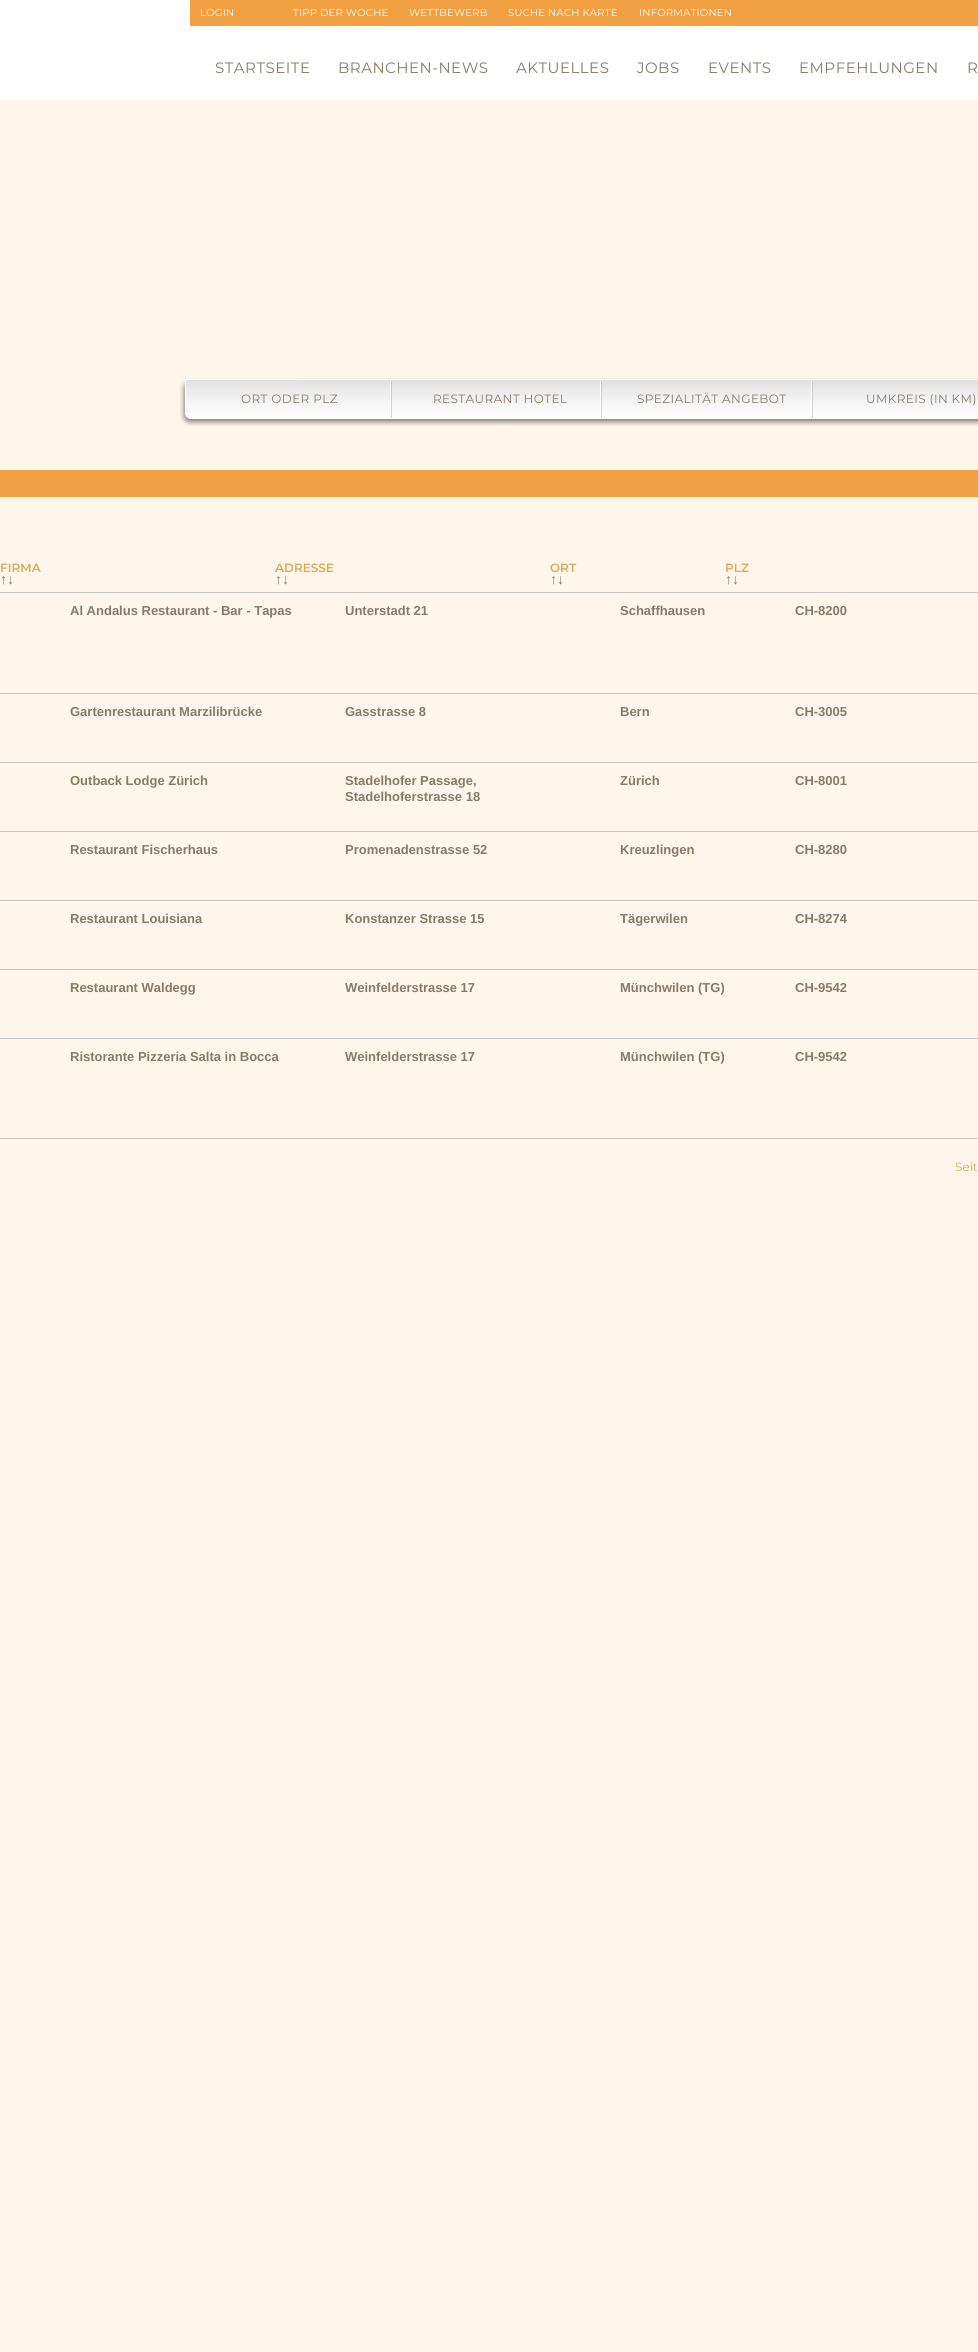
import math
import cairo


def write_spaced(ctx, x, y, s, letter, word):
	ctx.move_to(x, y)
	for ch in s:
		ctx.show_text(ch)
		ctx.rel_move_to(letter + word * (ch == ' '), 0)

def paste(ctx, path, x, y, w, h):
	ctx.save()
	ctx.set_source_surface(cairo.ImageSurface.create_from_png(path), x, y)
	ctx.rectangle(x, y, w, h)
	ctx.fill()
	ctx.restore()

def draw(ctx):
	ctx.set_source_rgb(1, 0.961, 0.918)
	ctx.paint()
	ctx.set_source_rgb(1, 1, 1)
	ctx.rectangle(0, 0, 978, 100)
	ctx.fill()
	ctx.set_source_rgb(0.941, 0.624, 0.263)
	ctx.rectangle(190, 0, 788, 26)
	ctx.fill()
	ctx.select_font_face('Montserrat')
	ctx.set_font_size(10)
	ctx.set_source_rgb(1, 1, 1)
	for x, y, s in [
		(200, 16, 'LOGIN'),
		(293, 16, 'TIPP DER WOCHE'),
		(409, 16, 'WETTBEWERB'),
		(508, 16, 'SUCHE NACH KARTE'),
		(639, 16, 'INFORMATIONEN'),
	]:
		write_spaced(ctx, x, y, s, 0.25, 0)
	ctx.set_font_size(15)
	ctx.set_source_rgb(0.529, 0.482, 0.408)
	for x, y, s in [
		(215, 73, 'STARTSEITE'),
		(338, 73, 'BRANCHEN-NEWS'),
		(516, 73, 'AKTUELLES'),
		(637, 73, 'JOBS'),
		(708, 73, 'EVENTS'),
		(799, 73, 'EMPFEHLUNGEN'),
		(967, 73, 'R'),
	]:
		write_spaced(ctx, x, y, s, 0.5, 0)
	paste(ctx, 'media/1.png', 180, 378, 798, 48)
	ctx.set_font_size(12)
	for x, y, s in [
		(241, 403, 'ORT ODER PLZ'),
		(433, 403, 'RESTAURANT HOTEL'),
		(637, 403, 'SPEZIALITÄT ANGEBOT'),
		(866, 403, 'UMKREIS (IN KM)'),
	]:
		write_spaced(ctx, x, y, s, 0.4, 0)
	ctx.set_source_rgb(0.941, 0.624, 0.263)
	ctx.rectangle(0, 470, 978, 27)
	ctx.fill()
	ctx.select_font_face('Montserrat SemiBold')
	ctx.set_source_rgb(0.863, 0.671, 0.341)
	ctx.move_to(0, 572)
	ctx.show_text('FIRMA')
	ctx.select_font_face('Liberation Sans', cairo.FONT_SLANT_NORMAL, cairo.FONT_WEIGHT_BOLD)
	ctx.set_font_size(14)
	ctx.set_source_rgb(0.529, 0.482, 0.408)
	ctx.move_to(0, 584)
	ctx.show_text('↑↓')
	ctx.select_font_face('Montserrat SemiBold')
	ctx.set_font_size(12)
	ctx.set_source_rgb(0.863, 0.671, 0.341)
	ctx.move_to(275, 572)
	ctx.show_text('ADRESSE')
	ctx.select_font_face('Liberation Sans', cairo.FONT_SLANT_NORMAL, cairo.FONT_WEIGHT_BOLD)
	ctx.set_font_size(14)
	ctx.set_source_rgb(0.529, 0.482, 0.408)
	ctx.move_to(275, 584)
	ctx.show_text('↑↓')
	ctx.select_font_face('Montserrat SemiBold')
	ctx.set_font_size(12)
	ctx.set_source_rgb(0.863, 0.671, 0.341)
	ctx.move_to(550, 572)
	ctx.show_text('ORT')
	ctx.select_font_face('Liberation Sans', cairo.FONT_SLANT_NORMAL, cairo.FONT_WEIGHT_BOLD)
	ctx.set_font_size(14)
	ctx.set_source_rgb(0.529, 0.482, 0.408)
	ctx.move_to(550, 584)
	ctx.show_text('↑↓')
	ctx.select_font_face('Montserrat SemiBold')
	ctx.set_font_size(12)
	ctx.set_source_rgb(0.863, 0.671, 0.341)
	ctx.move_to(725, 572)
	ctx.show_text('PLZ')
	ctx.select_font_face('Liberation Sans', cairo.FONT_SLANT_NORMAL, cairo.FONT_WEIGHT_BOLD)
	ctx.set_font_size(14)
	ctx.set_source_rgb(0.529, 0.482, 0.408)
	ctx.move_to(725, 584)
	ctx.show_text('↑↓')
	ctx.set_source_rgb(0.776, 0.776, 0.776)
	ctx.rectangle(0, 592, 978, 1)
	ctx.fill()
	ctx.set_font_size(13)
	ctx.set_source_rgb(0.529, 0.482, 0.408)
	for x, y, s in [
		(70, 615, 'Al Andalus Restaurant - Bar - Tapas'),
		(345, 615, 'Unterstadt 21'),
		(620, 615, 'Schaffhausen'),
		(795, 615, 'CH-8200'),
	]:
		ctx.move_to(x, y)
		ctx.show_text(s)
	ctx.set_source_rgb(0.776, 0.776, 0.776)
	ctx.rectangle(0, 693, 978, 1)
	ctx.fill()
	ctx.set_source_rgb(0.529, 0.482, 0.408)
	for x, y, s in [
		(70, 716, 'Gartenrestaurant Marzilibrücke'),
		(345, 716, 'Gasstrasse 8'),
		(620, 716, 'Bern'),
		(795, 716, 'CH-3005'),
	]:
		ctx.move_to(x, y)
		ctx.show_text(s)
	ctx.set_source_rgb(0.776, 0.776, 0.776)
	ctx.rectangle(0, 762, 978, 1)
	ctx.fill()
	ctx.set_source_rgb(0.529, 0.482, 0.408)
	for x, y, s in [
		(70, 785, 'Outback Lodge Zürich'),
		(345, 785, 'Stadelhofer Passage,'),
		(345, 801, 'Stadelhoferstrasse 18'),
		(620, 785, 'Zürich'),
		(795, 785, 'CH-8001'),
	]:
		ctx.move_to(x, y)
		ctx.show_text(s)
	ctx.set_source_rgb(0.776, 0.776, 0.776)
	ctx.rectangle(0, 831, 978, 1)
	ctx.fill()
	ctx.set_source_rgb(0.529, 0.482, 0.408)
	for x, y, s in [
		(70, 854, 'Restaurant Fischerhaus'),
		(345, 854, 'Promenadenstrasse 52'),
		(620, 854, 'Kreuzlingen'),
		(795, 854, 'CH-8280'),
	]:
		ctx.move_to(x, y)
		ctx.show_text(s)
	ctx.set_source_rgb(0.776, 0.776, 0.776)
	ctx.rectangle(0, 900, 978, 1)
	ctx.fill()
	ctx.set_source_rgb(0.529, 0.482, 0.408)
	for x, y, s in [
		(70, 923, 'Restaurant Louisiana'),
		(345, 923, 'Konstanzer Strasse 15'),
		(620, 923, 'Tägerwilen'),
		(795, 923, 'CH-8274'),
	]:
		ctx.move_to(x, y)
		ctx.show_text(s)
	ctx.set_source_rgb(0.776, 0.776, 0.776)
	ctx.rectangle(0, 969, 978, 1)
	ctx.fill()
	ctx.set_source_rgb(0.529, 0.482, 0.408)
	for x, y, s in [
		(70, 992, 'Restaurant Waldegg'),
		(345, 992, 'Weinfelderstrasse 17'),
		(620, 992, 'Münchwilen (TG)'),
		(795, 992, 'CH-9542'),
	]:
		ctx.move_to(x, y)
		ctx.show_text(s)
	ctx.set_source_rgb(0.776, 0.776, 0.776)
	ctx.rectangle(0, 1038, 978, 1)
	ctx.fill()
	ctx.set_source_rgb(0.529, 0.482, 0.408)
	for x, y, s in [
		(70, 1061, 'Ristorante Pizzeria Salta in Bocca'),
		(345, 1061, 'Weinfelderstrasse 17'),
		(620, 1061, 'Münchwilen (TG)'),
		(795, 1061, 'CH-9542'),
	]:
		ctx.move_to(x, y)
		ctx.show_text(s)
	ctx.set_source_rgb(0.804, 0.773, 0.718)
	ctx.rectangle(0, 1138, 978, 1)
	ctx.fill()
	ctx.select_font_face('Montserrat')
	ctx.set_font_size(12)
	ctx.set_source_rgb(0.863, 0.671, 0.341)
	ctx.move_to(955, 1171)
	ctx.show_text('Seit')


surface = cairo.ImageSurface(cairo.FORMAT_RGB24, 978, 2352)
ctx = cairo.Context(surface)
options = cairo.FontOptions()
options.set_hint_metrics(cairo.HINT_METRICS_OFF)
options.set_hint_style(cairo.HINT_STYLE_NONE)
ctx.set_font_options(options)
ctx.set_miter_limit(4)
draw(ctx)
surface.write_to_png('image.png')
